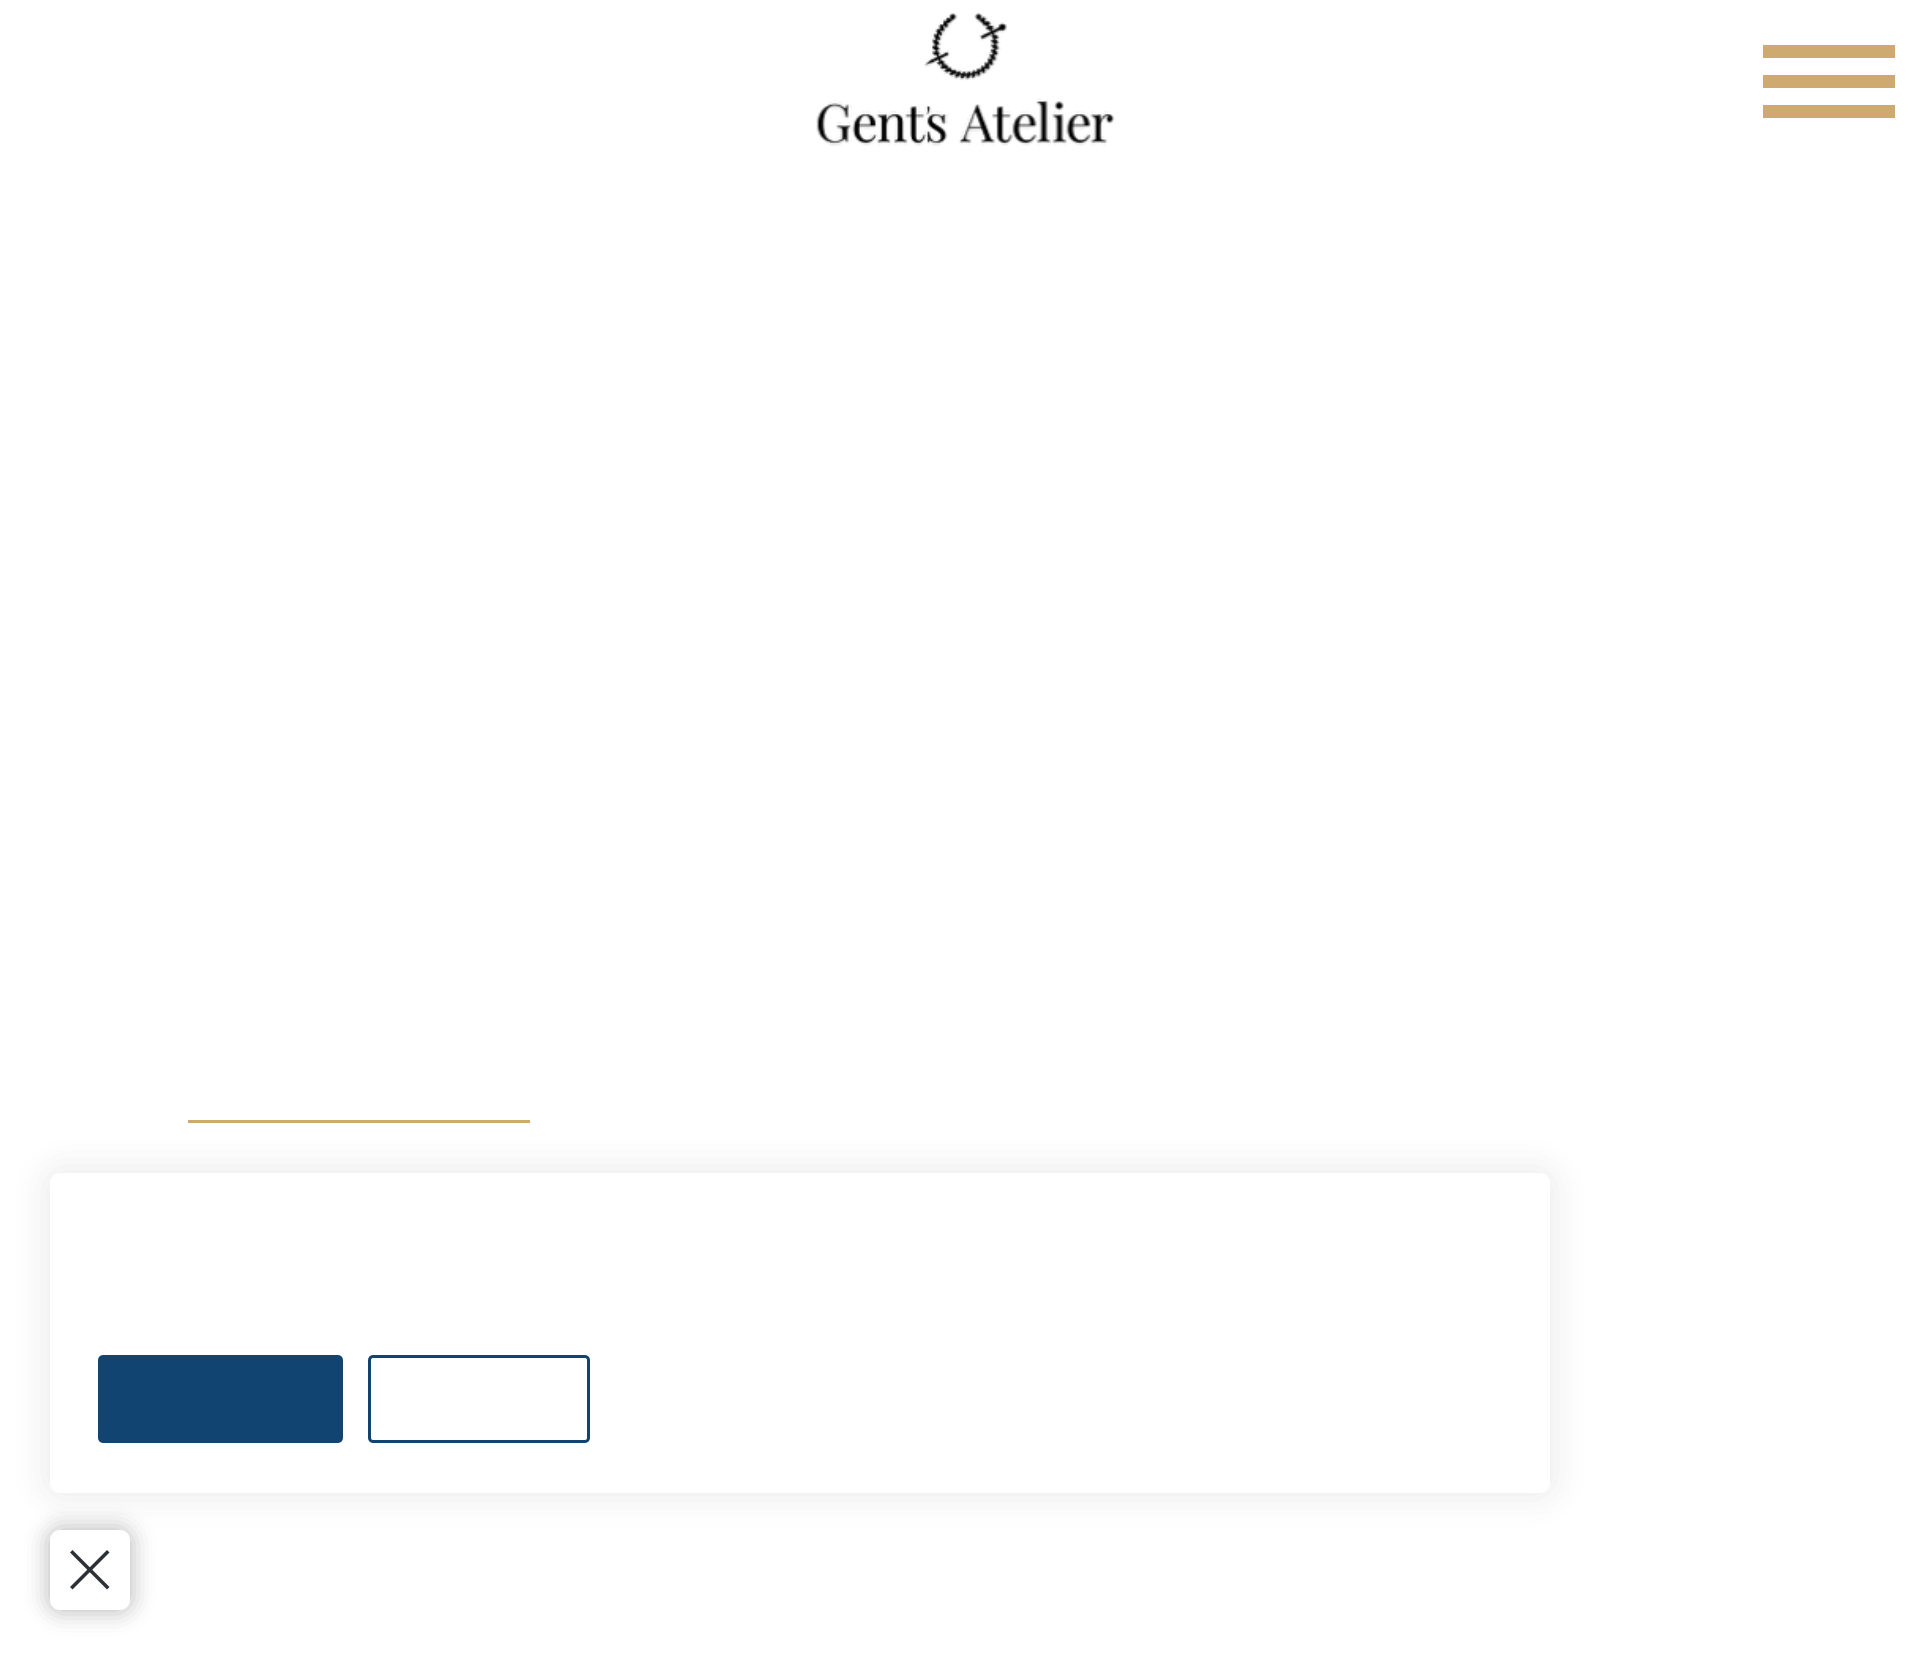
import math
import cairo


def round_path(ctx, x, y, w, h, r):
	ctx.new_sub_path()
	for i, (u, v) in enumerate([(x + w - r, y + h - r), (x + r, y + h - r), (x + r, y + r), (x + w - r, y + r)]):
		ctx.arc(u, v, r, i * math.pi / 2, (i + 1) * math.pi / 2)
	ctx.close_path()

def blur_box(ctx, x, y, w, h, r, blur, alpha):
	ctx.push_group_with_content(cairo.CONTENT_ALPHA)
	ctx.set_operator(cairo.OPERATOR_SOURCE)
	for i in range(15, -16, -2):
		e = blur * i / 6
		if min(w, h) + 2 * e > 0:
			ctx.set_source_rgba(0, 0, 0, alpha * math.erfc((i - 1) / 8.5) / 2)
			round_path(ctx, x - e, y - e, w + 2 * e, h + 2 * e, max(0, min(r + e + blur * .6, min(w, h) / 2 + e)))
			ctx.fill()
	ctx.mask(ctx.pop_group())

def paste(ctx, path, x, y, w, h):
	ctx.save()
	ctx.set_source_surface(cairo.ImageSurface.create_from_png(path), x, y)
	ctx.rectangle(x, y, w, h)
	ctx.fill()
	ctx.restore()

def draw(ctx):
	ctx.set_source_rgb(1, 1, 1)
	ctx.paint()
	paste(ctx, 'media/1.png', 816, 13, 299, 133)
	ctx.set_source_rgb(0.808, 0.663, 0.439)
	ctx.rectangle(1763, 45, 132, 13)
	ctx.rectangle(1763, 75, 132, 13)
	ctx.rectangle(1763, 105, 132, 13)
	ctx.rectangle(188, 1120, 342, 3)
	ctx.fill()
	ctx.set_source_rgb(0, 0, 0)
	blur_box(ctx, 50, 1173, 1500, 320, 10, 19, 0.1)
	ctx.set_source_rgb(1, 1, 1)
	round_path(ctx, 50, 1173, 1500, 320, 10)
	ctx.fill()
	ctx.set_source_rgb(0.067, 0.267, 0.443)
	round_path(ctx, 99.5, 1356.5, 242, 85, 3.5)
	ctx.fill_preserve()
	ctx.set_line_width(3)
	ctx.stroke()
	round_path(ctx, 369.5, 1356.5, 219, 85, 3.5)
	ctx.stroke()
	ctx.set_source_rgb(0, 0, 0)
	blur_box(ctx, 50, 1530, 80, 80, 10, 12.5, 0.3)
	ctx.set_source_rgb(1, 1, 1)
	round_path(ctx, 50, 1530, 80, 80, 10)
	ctx.fill()
	ctx.set_source_rgb(0.176, 0.188, 0.216)
	ctx.set_fill_rule(cairo.FILL_RULE_EVEN_ODD)
	ctx.new_path()
	ctx.move_to(70, 1552.5)
	ctx.line_to(72.5, 1550)
	ctx.line_to(109.5, 1587)
	ctx.line_to(107, 1589.5)
	ctx.close_path()
	ctx.fill()
	ctx.new_path()
	ctx.move_to(107, 1550)
	ctx.line_to(109.5, 1552.5)
	ctx.line_to(72.5, 1589.5)
	ctx.line_to(70, 1587)
	ctx.close_path()
	ctx.fill()


surface = cairo.ImageSurface(cairo.FORMAT_RGB24, 1923, 1659)
ctx = cairo.Context(surface)
options = cairo.FontOptions()
options.set_hint_metrics(cairo.HINT_METRICS_OFF)
options.set_hint_style(cairo.HINT_STYLE_NONE)
ctx.set_font_options(options)
ctx.set_miter_limit(4)
draw(ctx)
surface.write_to_png('image.png')
